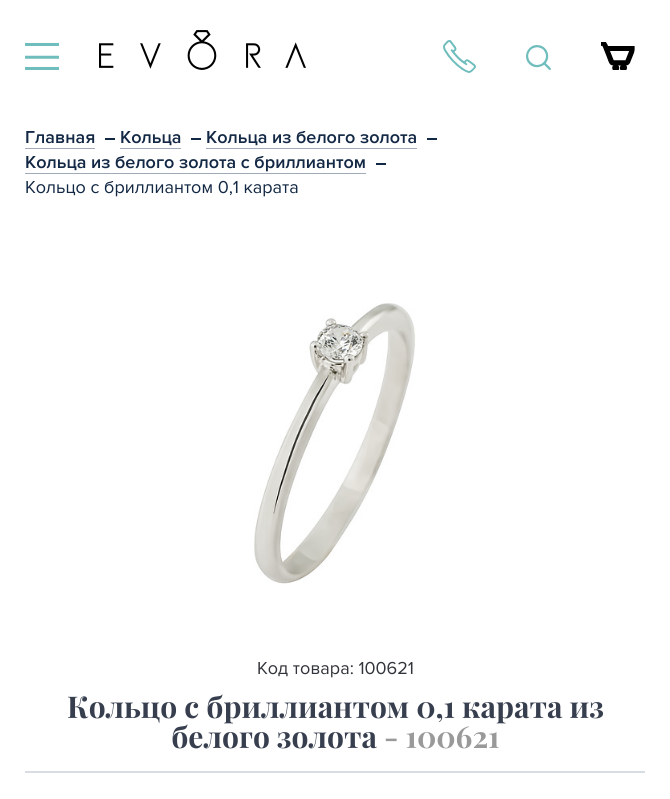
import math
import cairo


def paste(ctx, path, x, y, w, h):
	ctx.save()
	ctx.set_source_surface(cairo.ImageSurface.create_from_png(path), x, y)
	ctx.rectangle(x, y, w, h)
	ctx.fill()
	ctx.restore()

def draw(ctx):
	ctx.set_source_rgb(1, 1, 1)
	ctx.paint()
	paste(ctx, 'media/1.png', 25, 43, 34, 27)
	paste(ctx, 'media/2.png', 99, 30, 207, 40)
	paste(ctx, 'media/3.png', 443, 40, 33, 33)
	paste(ctx, 'media/4.png', 526, 45, 25, 25)
	paste(ctx, 'media/5.png', 601, 42, 34, 28)
	ctx.select_font_face('Proxima Nova SemiBold')
	ctx.set_font_size(18)
	ctx.set_source_rgb(0.075, 0.157, 0.267)
	ctx.move_to(25, 143)
	ctx.show_text('Главная')
	ctx.set_source_rgb(0.631, 0.667, 0.722)
	ctx.rectangle(25, 148, 70, 1)
	ctx.fill()
	ctx.set_source_rgb(0.075, 0.157, 0.267)
	ctx.rectangle(105, 138, 10, 2)
	ctx.fill()
	ctx.move_to(120, 143)
	ctx.show_text('Кольца')
	ctx.set_source_rgb(0.631, 0.667, 0.722)
	ctx.rectangle(120, 148, 61, 1)
	ctx.fill()
	ctx.set_source_rgb(0.075, 0.157, 0.267)
	ctx.rectangle(191, 138, 10, 2)
	ctx.fill()
	ctx.move_to(206, 143)
	ctx.show_text('Кольца из белого золота')
	ctx.set_source_rgb(0.631, 0.667, 0.722)
	ctx.rectangle(206, 148, 211, 1)
	ctx.fill()
	ctx.set_source_rgb(0.075, 0.157, 0.267)
	ctx.rectangle(427, 138, 10, 2)
	ctx.fill()
	ctx.move_to(25, 168)
	ctx.show_text('Кольца из белого золота с бриллиантом')
	ctx.set_source_rgb(0.631, 0.667, 0.722)
	ctx.rectangle(25, 173, 341, 1)
	ctx.fill()
	ctx.set_source_rgb(0.075, 0.157, 0.267)
	ctx.rectangle(376, 163, 10, 2)
	ctx.fill()
	ctx.select_font_face('Proxima Nova')
	ctx.move_to(25, 193)
	ctx.show_text('Кольцо с бриллиантом 0,1 карата')
	paste(ctx, 'media/6.png', 254, 303, 162, 281)
	ctx.set_source_rgb(0.192, 0.204, 0.227)
	ctx.move_to(257, 674)
	ctx.show_text('Код товара: 100621')
	ctx.select_font_face('Playfair Display', cairo.FONT_SLANT_NORMAL, cairo.FONT_WEIGHT_BOLD)
	ctx.set_font_size(30)
	ctx.set_source_rgb(0.216, 0.247, 0.31)
	ctx.move_to(67, 718)
	ctx.show_text('Кольцо с бриллиантом 0,1 карата из')
	ctx.move_to(171, 748)
	ctx.show_text('белого золота')
	ctx.set_source_rgb(0.6, 0.6, 0.6)
	ctx.move_to(384, 748)
	ctx.show_text('- 100621')
	ctx.set_source_rgb(0.847, 0.863, 0.89)
	ctx.rectangle(25, 771, 620, 2)
	ctx.fill()


surface = cairo.ImageSurface(cairo.FORMAT_RGB24, 670, 799)
ctx = cairo.Context(surface)
options = cairo.FontOptions()
options.set_hint_metrics(cairo.HINT_METRICS_OFF)
options.set_hint_style(cairo.HINT_STYLE_NONE)
ctx.set_font_options(options)
ctx.set_miter_limit(4)
draw(ctx)
surface.write_to_png('image.png')
